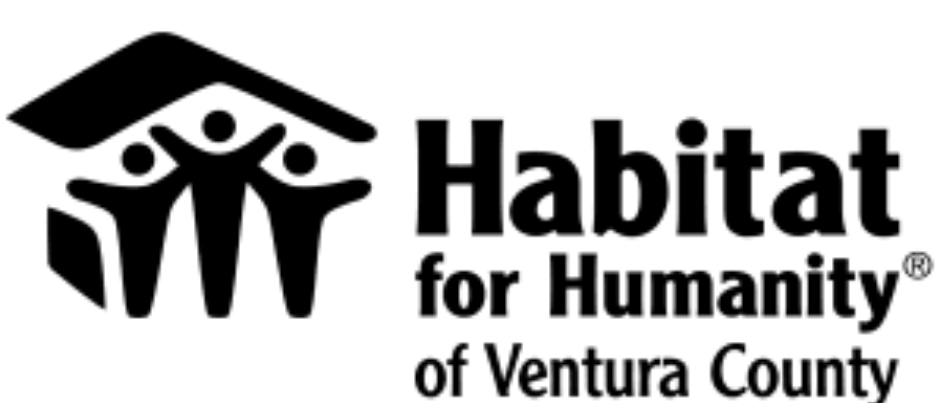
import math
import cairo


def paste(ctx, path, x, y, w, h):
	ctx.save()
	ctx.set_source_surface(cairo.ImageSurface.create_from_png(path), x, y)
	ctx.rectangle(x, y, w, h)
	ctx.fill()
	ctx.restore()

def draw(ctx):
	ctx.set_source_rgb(1, 1, 1)
	ctx.paint()
	paste(ctx, 'media/1.png', 5, 31, 930, 372)


surface = cairo.ImageSurface(cairo.FORMAT_RGB24, 943, 403)
ctx = cairo.Context(surface)
options = cairo.FontOptions()
options.set_hint_metrics(cairo.HINT_METRICS_OFF)
options.set_hint_style(cairo.HINT_STYLE_NONE)
ctx.set_font_options(options)
ctx.set_miter_limit(4)
draw(ctx)
surface.write_to_png('image.png')
